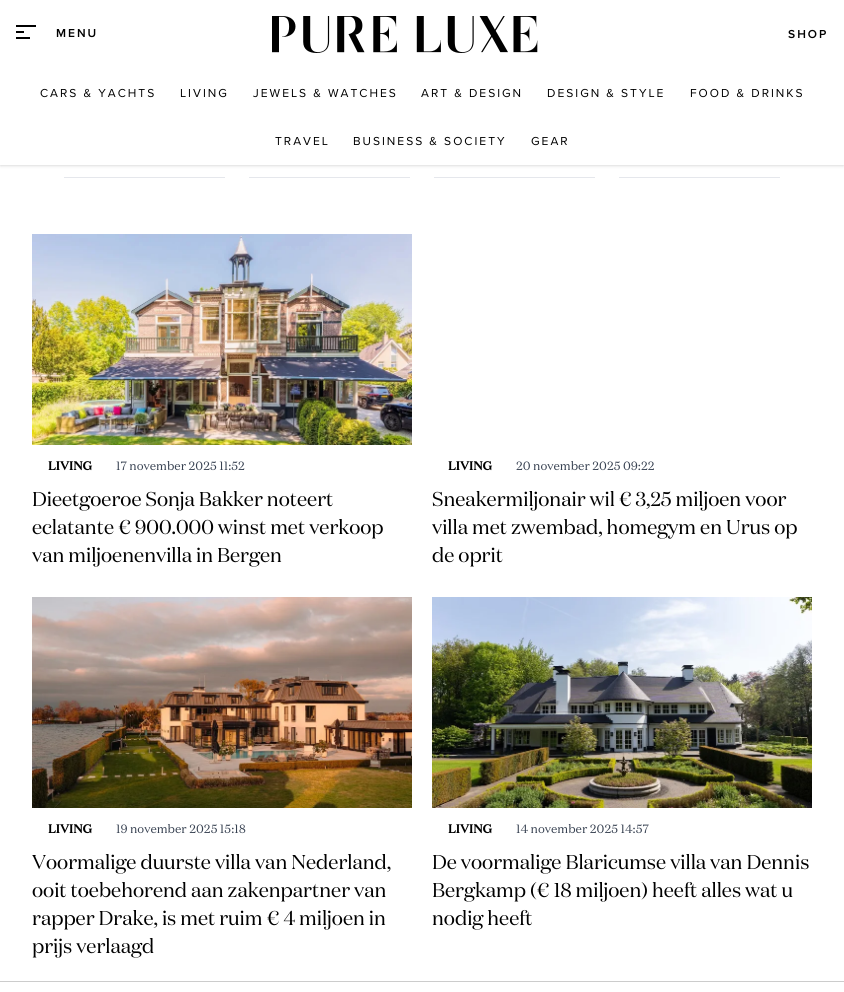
import math
import cairo


def write_spaced(ctx, x, y, s, letter, word):
	ctx.move_to(x, y)
	for ch in s:
		ctx.show_text(ch)
		ctx.rel_move_to(letter + word * (ch == ' '), 0)

def round_path(ctx, x, y, w, h, r):
	ctx.new_sub_path()
	for i, (u, v) in enumerate([(x + w - r, y + h - r), (x + r, y + h - r), (x + r, y + r), (x + w - r, y + r)]):
		ctx.arc(u, v, r, i * math.pi / 2, (i + 1) * math.pi / 2)
	ctx.close_path()

def blur_box(ctx, x, y, w, h, r, blur, alpha):
	ctx.push_group_with_content(cairo.CONTENT_ALPHA)
	ctx.set_operator(cairo.OPERATOR_SOURCE)
	for i in range(15, -16, -2):
		e = blur * i / 6
		if min(w, h) + 2 * e > 0:
			ctx.set_source_rgba(0, 0, 0, alpha * math.erfc((i - 1) / 8.5) / 2)
			round_path(ctx, x - e, y - e, w + 2 * e, h + 2 * e, max(0, min(r + e + blur * .6, min(w, h) / 2 + e)))
			ctx.fill()
	ctx.mask(ctx.pop_group())

def paste(ctx, path, x, y, w, h):
	ctx.save()
	ctx.set_source_surface(cairo.ImageSurface.create_from_png(path), x, y)
	ctx.rectangle(x, y, w, h)
	ctx.fill()
	ctx.restore()

def draw(ctx):
	ctx.set_source_rgb(1, 1, 1)
	ctx.paint()
	ctx.set_source_rgb(0, 0, 0)
	blur_box(ctx, 1, 2, 842, 163, 0, 1, 0.1)
	blur_box(ctx, 0, 1, 844, 165, 0, 1.5, 0.1)
	ctx.set_source_rgb(1, 1, 1)
	ctx.rectangle(0, 0, 844, 165)
	ctx.fill()
	ctx.set_source_rgb(0, 0, 0)
	ctx.rectangle(16, 25, 20, 2)
	ctx.rectangle(16, 31, 8, 2)
	ctx.rectangle(16, 37, 14, 2)
	ctx.fill()
	ctx.select_font_face('Proxima Nova SemiBold')
	ctx.set_font_size(12)
	write_spaced(ctx, 56, 37, 'MENU', 2, 0)
	paste(ctx, 'media/1.png', 272, 16, 266, 37)
	write_spaced(ctx, 788, 38, 'SHOP', 2, 0)
	ctx.select_font_face('Proxima Nova')
	for x, y, s in [
		(40, 97, 'CARS & YACHTS'),
		(180, 97, 'LIVING'),
		(253, 97, 'JEWELS & WATCHES'),
		(421, 97, 'ART & DESIGN'),
		(547, 97, 'DESIGN & STYLE'),
		(690, 97, 'FOOD & DRINKS'),
		(275, 145, 'TRAVEL'),
		(353, 145, 'BUSINESS & SOCIETY'),
		(531, 145, 'GEAR'),
	]:
		write_spaced(ctx, x, y, s, 2, 0)
	ctx.set_source_rgb(0.898, 0.906, 0.922)
	ctx.rectangle(64, 177, 161, 1)
	ctx.rectangle(249, 177, 161, 1)
	ctx.rectangle(434, 177, 161, 1)
	ctx.rectangle(619, 177, 161, 1)
	ctx.fill()
	paste(ctx, 'media/2.png', 32, 234, 380, 211)
	ctx.select_font_face('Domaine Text', cairo.FONT_SLANT_NORMAL, cairo.FONT_WEIGHT_BOLD)
	ctx.set_source_rgb(0, 0, 0)
	ctx.move_to(48, 470)
	ctx.show_text('LIVING')
	ctx.select_font_face('Domaine Text')
	ctx.set_source_rgb(0.216, 0.255, 0.318)
	ctx.move_to(116, 470)
	ctx.show_text('17 november 2025 11:52')
	ctx.select_font_face('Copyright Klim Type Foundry')
	ctx.set_font_size(20)
	ctx.set_source_rgb(0, 0, 0)
	for x, y, s in [
		(32, 506, 'Dieetgoeroe Sonja Bakker noteert'),
		(32, 534, 'eclatante € 900.000 winst met verkoop'),
		(32, 562, 'van miljoenenvilla in Bergen'),
	]:
		ctx.move_to(x, y)
		ctx.show_text(s)
	ctx.select_font_face('Domaine Text', cairo.FONT_SLANT_NORMAL, cairo.FONT_WEIGHT_BOLD)
	ctx.set_font_size(12)
	ctx.move_to(448, 470)
	ctx.show_text('LIVING')
	ctx.select_font_face('Domaine Text')
	ctx.set_source_rgb(0.216, 0.255, 0.318)
	ctx.move_to(516, 470)
	ctx.show_text('20 november 2025 09:22')
	ctx.select_font_face('Copyright Klim Type Foundry')
	ctx.set_font_size(20)
	ctx.set_source_rgb(0, 0, 0)
	for x, y, s in [
		(432, 506, 'Sneakermiljonair wil € 3,25 miljoen voor'),
		(432, 534, 'villa met zwembad, homegym en Urus op'),
		(432, 562, 'de oprit'),
	]:
		ctx.move_to(x, y)
		ctx.show_text(s)
	paste(ctx, 'media/3.png', 32, 597, 380, 211)
	ctx.select_font_face('Domaine Text', cairo.FONT_SLANT_NORMAL, cairo.FONT_WEIGHT_BOLD)
	ctx.set_font_size(12)
	ctx.move_to(48, 833)
	ctx.show_text('LIVING')
	ctx.select_font_face('Domaine Text')
	ctx.set_source_rgb(0.216, 0.255, 0.318)
	ctx.move_to(116, 833)
	ctx.show_text('19 november 2025 15:18')
	ctx.select_font_face('Copyright Klim Type Foundry')
	ctx.set_font_size(20)
	ctx.set_source_rgb(0, 0, 0)
	for x, y, s in [
		(32, 869, 'Voormalige duurste villa van Nederland,'),
		(32, 897, 'ooit toebehorend aan zakenpartner van'),
		(32, 925, 'rapper Drake, is met ruim € 4 miljoen in'),
		(32, 953, 'prijs verlaagd'),
	]:
		ctx.move_to(x, y)
		ctx.show_text(s)
	paste(ctx, 'media/4.png', 432, 597, 380, 211)
	ctx.select_font_face('Domaine Text', cairo.FONT_SLANT_NORMAL, cairo.FONT_WEIGHT_BOLD)
	ctx.set_font_size(12)
	ctx.move_to(448, 833)
	ctx.show_text('LIVING')
	ctx.select_font_face('Domaine Text')
	ctx.set_source_rgb(0.216, 0.255, 0.318)
	ctx.move_to(516, 833)
	ctx.show_text('14 november 2025 14:57')
	ctx.select_font_face('Copyright Klim Type Foundry')
	ctx.set_font_size(20)
	ctx.set_source_rgb(0, 0, 0)
	for x, y, s in [
		(432, 869, 'De voormalige Blaricumse villa van Dennis'),
		(432, 897, 'Bergkamp (€ 18 miljoen) heeft alles wat u'),
		(432, 925, 'nodig heeft'),
	]:
		ctx.move_to(x, y)
		ctx.show_text(s)
	ctx.set_source_rgb(0.8, 0.8, 0.8)
	ctx.rectangle(0, 981, 844, 1)
	ctx.fill()


surface = cairo.ImageSurface(cairo.FORMAT_RGB24, 844, 992)
ctx = cairo.Context(surface)
options = cairo.FontOptions()
options.set_hint_metrics(cairo.HINT_METRICS_OFF)
options.set_hint_style(cairo.HINT_STYLE_NONE)
ctx.set_font_options(options)
ctx.set_miter_limit(4)
draw(ctx)
surface.write_to_png('image.png')
